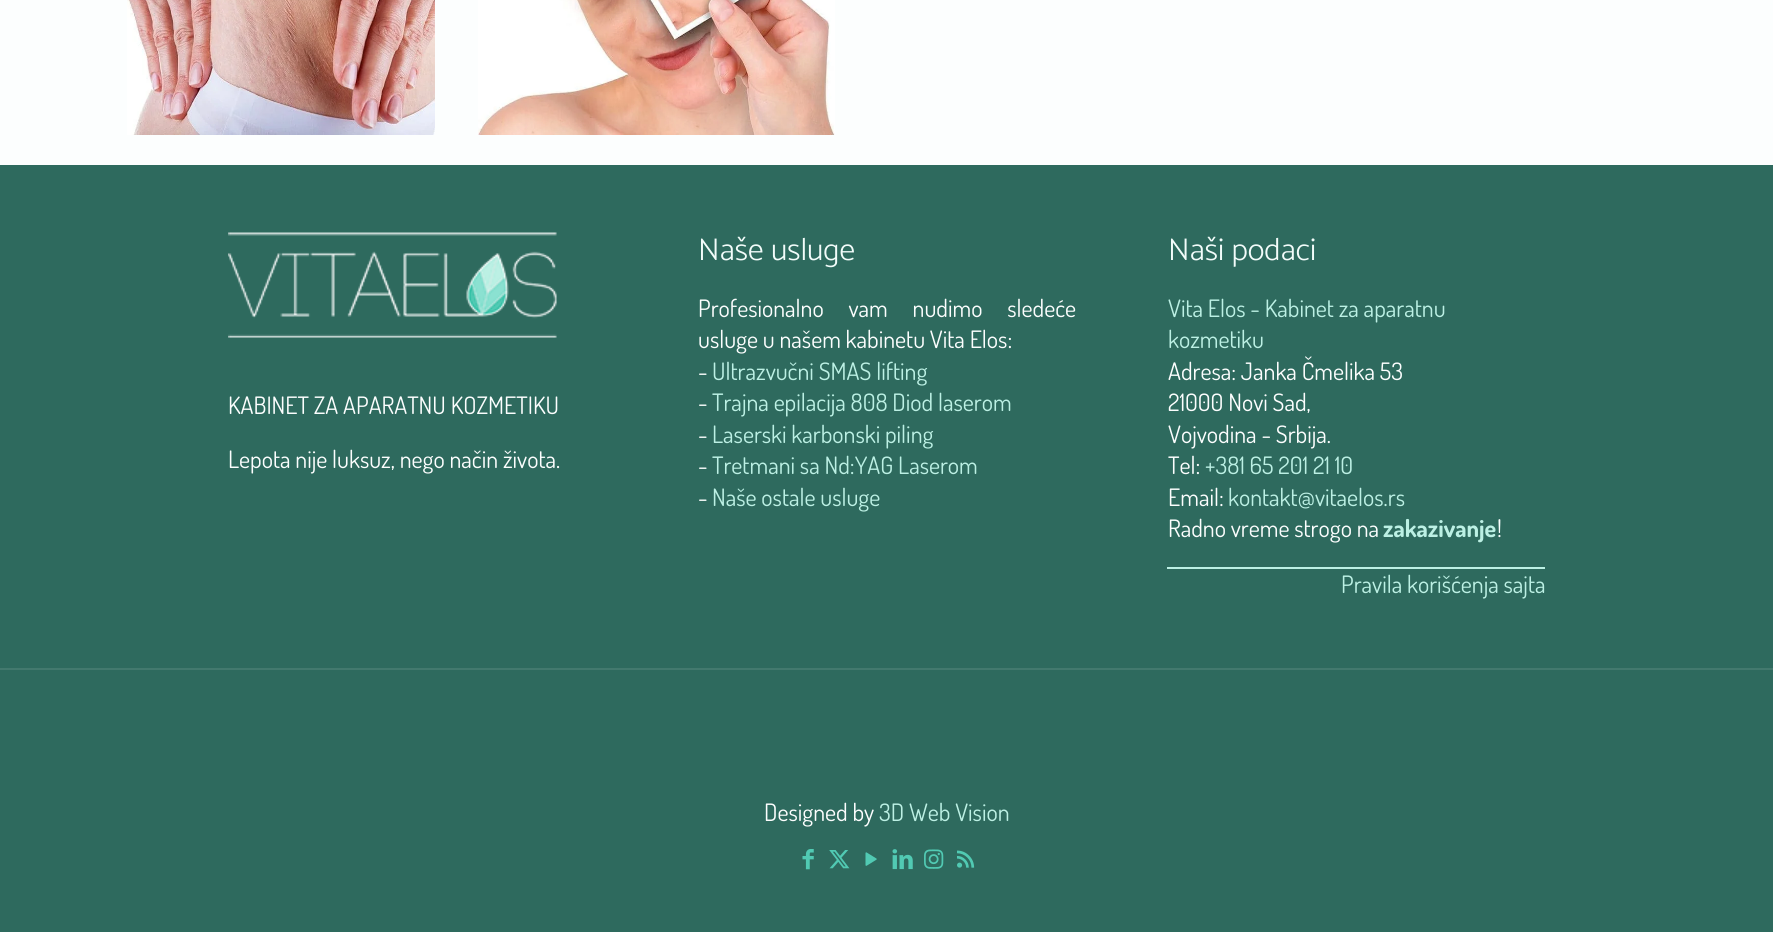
import math
import cairo


def write_spaced(ctx, x, y, s, letter, word):
	ctx.move_to(x, y)
	for ch in s:
		ctx.show_text(ch)
		ctx.rel_move_to(letter + word * (ch == ' '), 0)

def paste(ctx, path, x, y, w, h):
	ctx.save()
	ctx.set_source_surface(cairo.ImageSurface.create_from_png(path), x, y)
	ctx.rectangle(x, y, w, h)
	ctx.fill()
	ctx.restore()

def draw(ctx):
	ctx.set_source_rgb(0.988, 0.996, 0.996)
	ctx.paint()
	paste(ctx, 'media/1.png', 127, 0, 308, 135)
	paste(ctx, 'media/2.png', 478, 0, 357, 135)
	ctx.set_source_rgb(0.18, 0.416, 0.369)
	ctx.rectangle(0, 165, 1773, 767)
	ctx.fill()
	paste(ctx, 'media/3.png', 228, 232, 329, 106)
	ctx.select_font_face('Dosis')
	ctx.set_font_size(24)
	ctx.set_source_rgb(0.988, 0.996, 0.996)
	ctx.move_to(228, 414)
	ctx.show_text('KABINET ZA APARATNU KOZMETIKU')
	ctx.move_to(228, 468)
	ctx.show_text('Lepota nije luksuz, nego način života.')
	ctx.select_font_face('Catamaran Light')
	ctx.set_font_size(31.5)
	ctx.set_source_rgb(0.949, 0.988, 0.98)
	ctx.move_to(698, 260)
	ctx.show_text('Naše usluge')
	ctx.select_font_face('Dosis')
	ctx.set_font_size(24)
	ctx.set_source_rgb(0.988, 0.996, 0.996)
	write_spaced(ctx, 698, 317, 'Profesionalno vam nudimo sledeće', 0, 20)
	ctx.move_to(698, 348)
	ctx.show_text('usluge u našem kabinetu Vita Elos:')
	ctx.move_to(698, 380)
	ctx.show_text('-')
	ctx.set_source_rgb(0.737, 0.941, 0.894)
	ctx.move_to(712, 380)
	ctx.show_text('Ultrazvučni SMAS lifting')
	ctx.set_source_rgb(0.988, 0.996, 0.996)
	ctx.move_to(698, 411)
	ctx.show_text('-')
	ctx.set_source_rgb(0.737, 0.941, 0.894)
	ctx.move_to(712, 411)
	ctx.show_text('Trajna epilacija 808 Diod laserom')
	ctx.set_source_rgb(0.988, 0.996, 0.996)
	ctx.move_to(698, 443)
	ctx.show_text('-')
	ctx.set_source_rgb(0.737, 0.941, 0.894)
	ctx.move_to(712, 443)
	ctx.show_text('Laserski karbonski piling')
	ctx.set_source_rgb(0.988, 0.996, 0.996)
	ctx.move_to(698, 474)
	ctx.show_text('-')
	ctx.set_source_rgb(0.737, 0.941, 0.894)
	ctx.move_to(712, 474)
	ctx.show_text('Tretmani sa Nd:YAG Laserom')
	ctx.set_source_rgb(0.988, 0.996, 0.996)
	ctx.move_to(698, 506)
	ctx.show_text('-')
	ctx.set_source_rgb(0.737, 0.941, 0.894)
	ctx.move_to(712, 506)
	ctx.show_text('Naše ostale usluge')
	ctx.select_font_face('Catamaran Light')
	ctx.set_font_size(31.5)
	ctx.set_source_rgb(0.949, 0.988, 0.98)
	ctx.move_to(1168, 260)
	ctx.show_text('Naši podaci')
	ctx.select_font_face('Dosis')
	ctx.set_font_size(24)
	ctx.set_source_rgb(0.737, 0.941, 0.894)
	ctx.move_to(1168, 317)
	ctx.show_text('Vita Elos - Kabinet za aparatnu')
	ctx.move_to(1168, 348)
	ctx.show_text('kozmetiku')
	ctx.set_source_rgb(0.988, 0.996, 0.996)
	for x, y, s in [
		(1168, 380, 'Adresa: Janka Čmelika 53'),
		(1168, 411, '21000 Novi Sad,'),
		(1168, 443, 'Vojvodina - Srbija.'),
		(1168, 474, 'Tel:'),
	]:
		ctx.move_to(x, y)
		ctx.show_text(s)
	ctx.set_source_rgb(0.737, 0.941, 0.894)
	ctx.move_to(1205, 474)
	ctx.show_text('+381 65 201 21 10')
	ctx.set_source_rgb(0.988, 0.996, 0.996)
	ctx.move_to(1168, 506)
	ctx.show_text('Email:')
	ctx.set_source_rgb(0.737, 0.941, 0.894)
	ctx.move_to(1228, 506)
	ctx.show_text('kontakt@vitaelos.rs')
	ctx.set_source_rgb(0.988, 0.996, 0.996)
	ctx.move_to(1168, 537)
	ctx.show_text('Radno vreme strogo na')
	ctx.select_font_face('Dosis', cairo.FONT_SLANT_NORMAL, cairo.FONT_WEIGHT_BOLD)
	ctx.set_source_rgb(0.737, 0.941, 0.894)
	ctx.move_to(1383, 537)
	ctx.show_text('zakazivanje')
	ctx.select_font_face('Dosis')
	ctx.set_source_rgb(0.988, 0.996, 0.996)
	ctx.move_to(1497, 537)
	ctx.show_text('!')
	ctx.set_source_rgb(0.737, 0.941, 0.894)
	ctx.rectangle(1167, 567, 378, 2)
	ctx.fill()
	ctx.move_to(1341, 593)
	ctx.show_text('Pravila korišćenja sajta')
	ctx.set_source_rgb(0.263, 0.475, 0.431)
	ctx.rectangle(0, 668, 1773, 2)
	ctx.fill()
	ctx.set_source_rgb(0.988, 0.996, 0.996)
	ctx.move_to(764, 821)
	ctx.show_text('Designed by')
	ctx.set_source_rgb(0.737, 0.941, 0.894)
	ctx.move_to(879, 821)
	ctx.show_text('3D Web Vision')
	paste(ctx, 'media/4.png', 802, 849, 12, 21)
	paste(ctx, 'media/5.png', 829, 850, 21, 19)
	paste(ctx, 'media/6.png', 865, 852, 12, 14)
	paste(ctx, 'media/7.png', 892, 849, 21, 21)
	paste(ctx, 'media/8.png', 924, 849, 20, 20)
	paste(ctx, 'media/9.png', 957, 850, 18, 18)


surface = cairo.ImageSurface(cairo.FORMAT_RGB24, 1773, 932)
ctx = cairo.Context(surface)
options = cairo.FontOptions()
options.set_hint_metrics(cairo.HINT_METRICS_OFF)
options.set_hint_style(cairo.HINT_STYLE_NONE)
ctx.set_font_options(options)
ctx.set_miter_limit(4)
draw(ctx)
surface.write_to_png('image.png')
